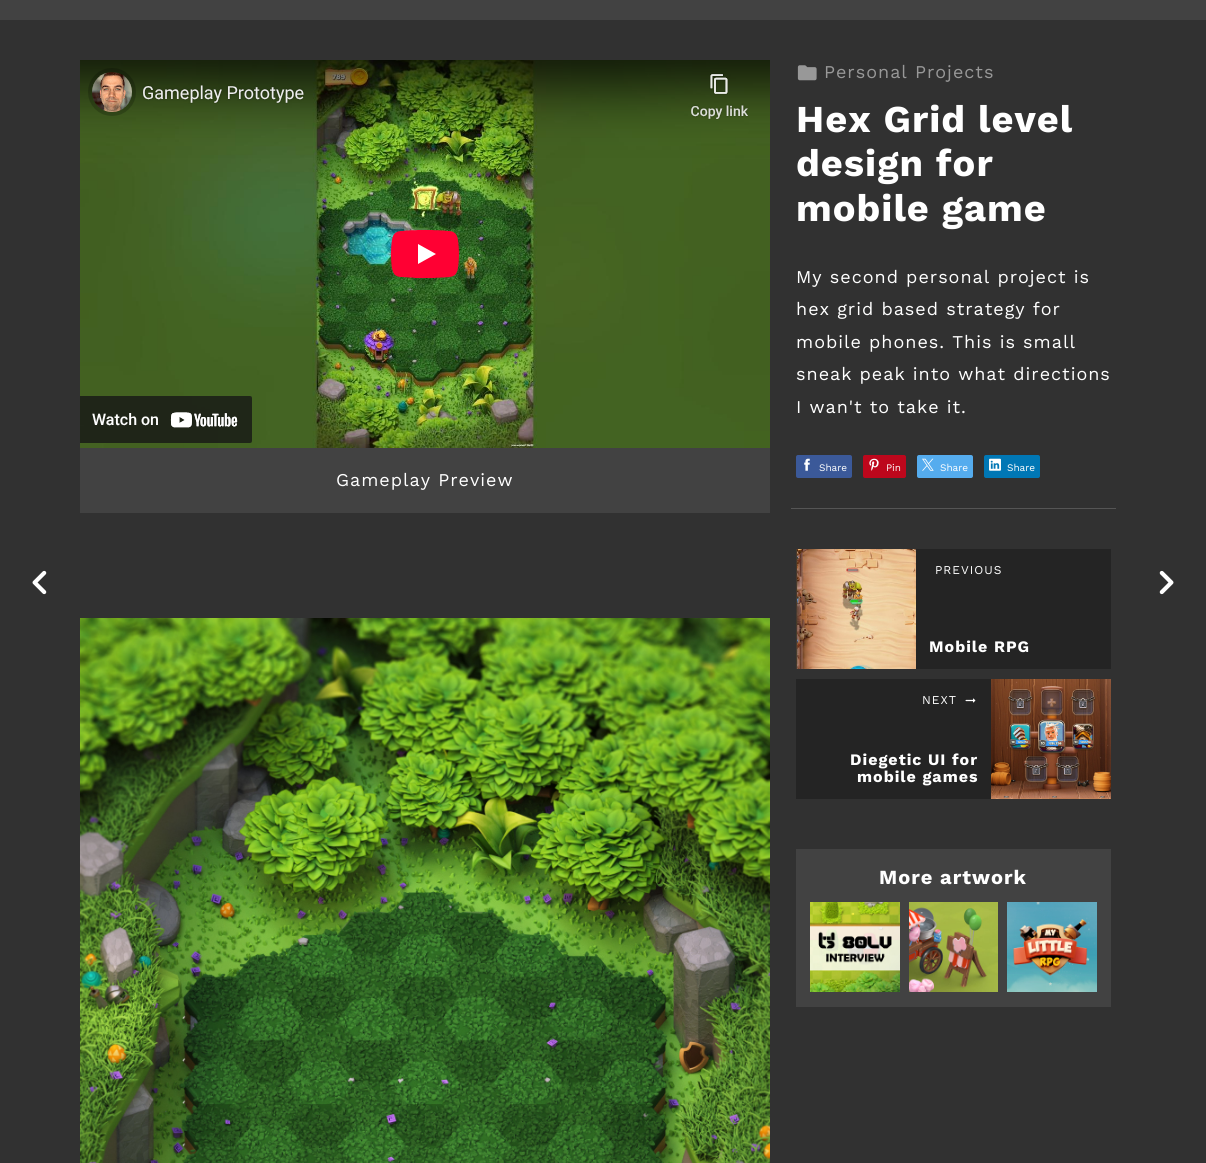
import math
import cairo


def write_spaced(ctx, x, y, s, letter, word):
	ctx.move_to(x, y)
	for ch in s:
		ctx.show_text(ch)
		ctx.rel_move_to(letter + word * (ch == ' '), 0)

def round_path(ctx, x, y, w, h, r):
	ctx.new_sub_path()
	for i, (u, v) in enumerate([(x + w - r, y + h - r), (x + r, y + h - r), (x + r, y + r), (x + w - r, y + r)]):
		ctx.arc(u, v, r, i * math.pi / 2, (i + 1) * math.pi / 2)
	ctx.close_path()

def paste(ctx, path, x, y, w, h):
	ctx.save()
	ctx.set_source_surface(cairo.ImageSurface.create_from_png(path), x, y)
	ctx.rectangle(x, y, w, h)
	ctx.fill()
	ctx.restore()

def draw(ctx):
	ctx.set_source_rgb(0.192, 0.192, 0.192)
	ctx.paint()
	ctx.set_source_rgb(0.259, 0.259, 0.259)
	ctx.rectangle(0, 0, 1206, 20)
	ctx.fill()
	paste(ctx, 'media/1.png', 32, 570, 15, 25)
	paste(ctx, 'media/2.png', 80, 60, 690, 388)
	ctx.rectangle(80, 448, 690, 65)
	ctx.fill()
	ctx.select_font_face('Work Sans')
	ctx.set_font_size(18)
	ctx.set_source_rgb(1, 1, 1)
	write_spaced(ctx, 336, 486, 'Gameplay Preview', 1, 0)
	paste(ctx, 'media/3.png', 80, 618, 690, 545)
	paste(ctx, 'media/4.png', 797, 65, 20, 16)
	ctx.set_source_rgb(0.596, 0.596, 0.596)
	write_spaced(ctx, 824, 78, 'Personal Projects', 1, 0)
	ctx.select_font_face('Work Sans', cairo.FONT_SLANT_NORMAL, cairo.FONT_WEIGHT_BOLD)
	ctx.set_font_size(38)
	ctx.set_source_rgb(1, 1, 1)
	for x, y, s in [
		(796, 132, 'Hex Grid level'),
		(796, 176, 'design for'),
		(796, 221, 'mobile game'),
	]:
		write_spaced(ctx, x, y, s, 1, 0)
	ctx.select_font_face('Work Sans')
	ctx.set_font_size(18)
	for x, y, s in [
		(796, 283, 'My second personal project is'),
		(796, 315, 'hex grid based strategy for'),
		(796, 348, 'mobile phones. This is small'),
		(796, 380, 'sneak peak into what directions'),
		(796, 413, 'I wan\'t to take it.'),
	]:
		write_spaced(ctx, x, y, s, 1, 0)
	ctx.set_source_rgb(0.231, 0.349, 0.6)
	round_path(ctx, 796, 455, 56, 23, 2)
	ctx.fill()
	paste(ctx, 'media/5.png', 804, 458, 6, 13)
	ctx.set_font_size(10)
	ctx.set_source_rgb(1, 1, 1)
	ctx.move_to(819, 471)
	ctx.show_text('Share')
	ctx.set_source_rgb(0.741, 0.031, 0.11)
	round_path(ctx, 863, 455, 43, 23, 2)
	ctx.fill()
	paste(ctx, 'media/6.png', 869, 458, 10, 13)
	ctx.set_source_rgb(1, 1, 1)
	ctx.move_to(886, 471)
	ctx.show_text('Pin')
	ctx.set_source_rgb(0.333, 0.675, 0.933)
	round_path(ctx, 917, 455, 56, 23, 2)
	ctx.fill()
	paste(ctx, 'media/7.png', 922, 458, 12, 13)
	ctx.set_source_rgb(1, 1, 1)
	ctx.move_to(940, 471)
	ctx.show_text('Share')
	ctx.set_source_rgb(0, 0.467, 0.71)
	round_path(ctx, 984, 455, 56, 23, 2)
	ctx.fill()
	paste(ctx, 'media/8.png', 989, 458, 12, 13)
	ctx.set_source_rgb(1, 1, 1)
	ctx.move_to(1007, 471)
	ctx.show_text('Share')
	ctx.set_source_rgb(0.333, 0.333, 0.333)
	ctx.rectangle(791, 508, 325, 1)
	ctx.fill()
	ctx.set_source_rgb(0.141, 0.141, 0.141)
	ctx.rectangle(916, 549, 195, 120)
	ctx.fill()
	paste(ctx, 'media/9.png', 796, 549, 120, 120)
	ctx.set_font_size(12)
	ctx.set_source_rgb(1, 1, 1)
	write_spaced(ctx, 935, 574, 'PREVIOUS', 1, 0)
	ctx.select_font_face('Work Sans', cairo.FONT_SLANT_NORMAL, cairo.FONT_WEIGHT_BOLD)
	ctx.set_font_size(16)
	write_spaced(ctx, 929, 652, 'Mobile RPG', 1, 0)
	ctx.set_source_rgb(0.141, 0.141, 0.141)
	ctx.rectangle(796, 679, 195, 120)
	ctx.fill()
	ctx.select_font_face('Work Sans')
	ctx.set_font_size(12)
	ctx.set_source_rgb(1, 1, 1)
	write_spaced(ctx, 922, 704, 'NEXT', 1, 0)
	paste(ctx, 'media/10.png', 965, 698, 11, 5)
	ctx.select_font_face('Work Sans', cairo.FONT_SLANT_NORMAL, cairo.FONT_WEIGHT_BOLD)
	ctx.set_font_size(16)
	write_spaced(ctx, 850, 765, 'Diegetic UI for', 1, 0)
	write_spaced(ctx, 857, 782, 'mobile games', 1, 0)
	paste(ctx, 'media/11.png', 991, 679, 120, 120)
	ctx.set_source_rgb(0.259, 0.259, 0.259)
	ctx.rectangle(796, 849, 315, 158)
	ctx.fill()
	ctx.set_font_size(20)
	ctx.set_source_rgb(1, 1, 1)
	write_spaced(ctx, 879, 884, 'More artwork', 1, 0)
	paste(ctx, 'media/12.png', 810, 902, 90, 90)
	paste(ctx, 'media/13.png', 909, 902, 89, 90)
	paste(ctx, 'media/14.png', 1007, 902, 90, 90)
	paste(ctx, 'media/15.png', 1159, 570, 15, 25)


surface = cairo.ImageSurface(cairo.FORMAT_RGB24, 1206, 1163)
ctx = cairo.Context(surface)
options = cairo.FontOptions()
options.set_hint_metrics(cairo.HINT_METRICS_OFF)
options.set_hint_style(cairo.HINT_STYLE_NONE)
ctx.set_font_options(options)
ctx.set_miter_limit(4)
draw(ctx)
surface.write_to_png('image.png')
